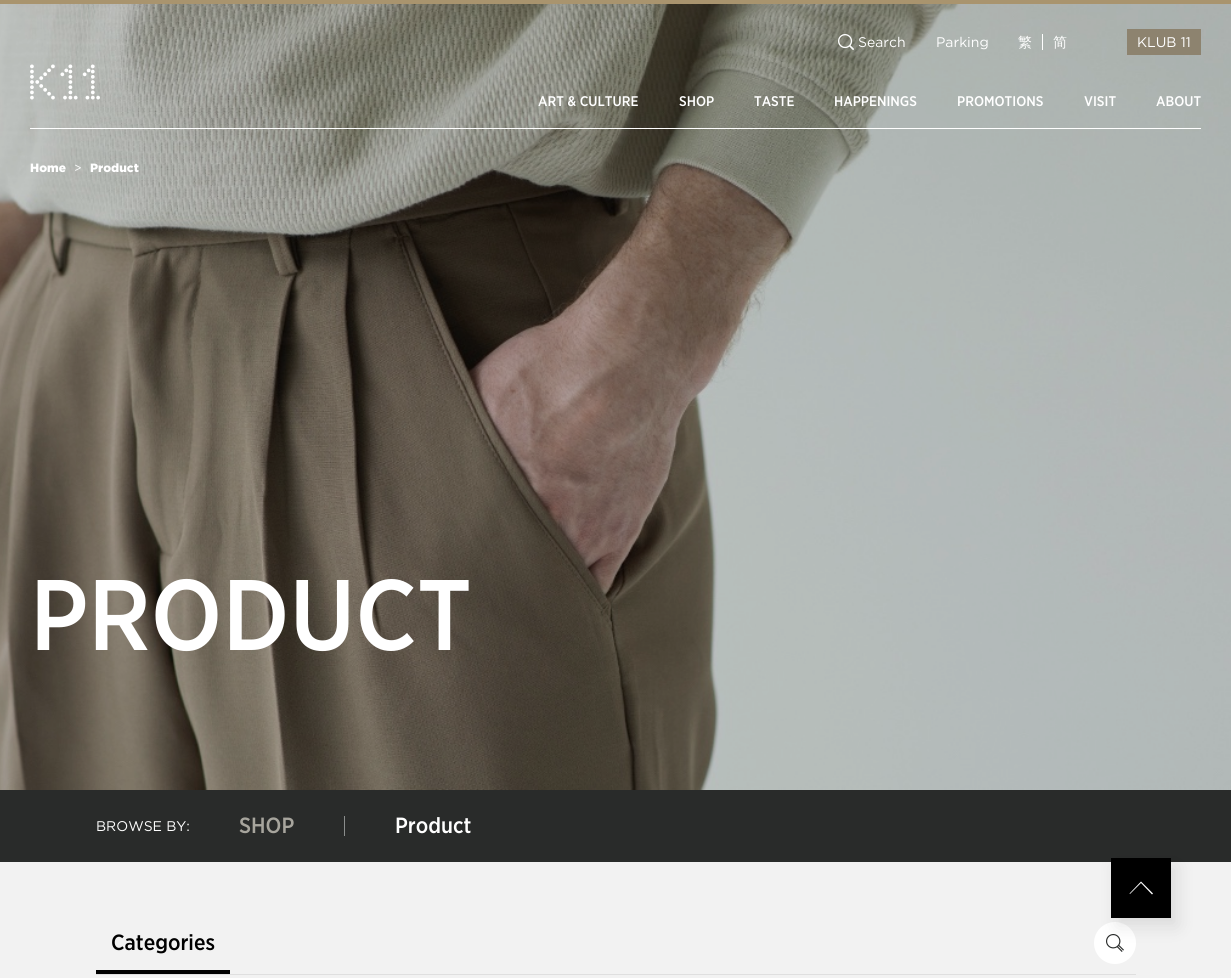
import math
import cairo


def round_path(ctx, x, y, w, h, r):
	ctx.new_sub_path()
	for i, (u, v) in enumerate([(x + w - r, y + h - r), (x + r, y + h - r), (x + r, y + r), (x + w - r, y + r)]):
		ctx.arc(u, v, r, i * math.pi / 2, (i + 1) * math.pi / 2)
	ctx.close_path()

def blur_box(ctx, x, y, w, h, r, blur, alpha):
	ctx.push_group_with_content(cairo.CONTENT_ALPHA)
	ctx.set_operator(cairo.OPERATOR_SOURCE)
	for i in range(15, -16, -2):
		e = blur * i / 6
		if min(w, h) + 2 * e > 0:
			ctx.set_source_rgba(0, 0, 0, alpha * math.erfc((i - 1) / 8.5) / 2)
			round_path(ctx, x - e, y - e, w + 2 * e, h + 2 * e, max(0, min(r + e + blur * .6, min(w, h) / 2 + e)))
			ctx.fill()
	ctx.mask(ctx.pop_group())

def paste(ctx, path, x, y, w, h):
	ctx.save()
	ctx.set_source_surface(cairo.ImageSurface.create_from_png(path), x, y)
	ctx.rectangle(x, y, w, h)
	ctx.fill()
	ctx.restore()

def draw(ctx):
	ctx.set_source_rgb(0.949, 0.949, 0.949)
	ctx.paint()
	ctx.set_source_rgb(0.663, 0.58, 0.431)
	ctx.rectangle(0, 0, 1231, 4)
	ctx.fill()
	paste(ctx, 'media/3.png', 0, 4, 1231, 786)
	paste(ctx, 'media/1.png', 838, 34, 16, 16)
	ctx.select_font_face('Gotham')
	ctx.set_font_size(14)
	ctx.set_source_rgb(1, 1, 1)
	ctx.move_to(858, 47)
	ctx.show_text('Search')
	ctx.move_to(936, 47)
	ctx.show_text('Parking')
	ctx.select_font_face('WenQuanYi Zen Hei Medium')
	ctx.move_to(1018, 47)
	ctx.show_text('繁')
	ctx.rectangle(1042, 34, 1, 16)
	ctx.fill()
	ctx.move_to(1053, 47)
	ctx.show_text('简')
	ctx.set_source_rgb(0.553, 0.514, 0.435)
	ctx.rectangle(1127, 29, 74, 26)
	ctx.fill()
	ctx.select_font_face('Gotham')
	ctx.set_source_rgb(1, 1, 1)
	ctx.move_to(1137, 47)
	ctx.show_text('KLUB 11')
	paste(ctx, 'media/2.png', 30, 64, 70, 36)
	ctx.select_font_face('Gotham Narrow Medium')
	for x, y, s in [
		(538, 106, 'ART & CULTURE'),
		(679, 106, 'SHOP'),
		(754, 106, 'TASTE'),
		(834, 106, 'HAPPENINGS'),
		(957, 106, 'PROMOTIONS'),
		(1084, 106, 'VISIT'),
		(1156, 106, 'ABOUT'),
	]:
		ctx.move_to(x, y)
		ctx.show_text(s)
	ctx.rectangle(30, 128, 1171, 1)
	ctx.fill()
	ctx.select_font_face('Gotham Black')
	ctx.set_font_size(12)
	ctx.move_to(30, 172)
	ctx.show_text('Home')
	ctx.select_font_face('Gotham')
	ctx.move_to(74, 172)
	ctx.show_text('>')
	ctx.select_font_face('Gotham Black')
	ctx.move_to(90, 172)
	ctx.show_text('Product')
	ctx.select_font_face('Gotham Narrow Medium')
	ctx.set_font_size(100)
	ctx.move_to(30, 650)
	ctx.show_text('PRODUCT')
	ctx.set_source_rgb(0.161, 0.169, 0.165)
	ctx.rectangle(0, 790, 1231, 72)
	ctx.fill()
	ctx.select_font_face('Gotham')
	ctx.set_font_size(14)
	ctx.set_source_rgb(1, 1, 1)
	ctx.move_to(96, 831)
	ctx.show_text('BROWSE BY:')
	ctx.select_font_face('Gotham Narrow Medium')
	ctx.set_font_size(22)
	ctx.set_source_rgb(0.655, 0.647, 0.616)
	ctx.move_to(239, 833)
	ctx.show_text('SHOP')
	ctx.set_source_rgb(0.545, 0.557, 0.553)
	ctx.rectangle(344, 816, 1, 20)
	ctx.fill()
	ctx.set_source_rgb(1, 1, 1)
	ctx.move_to(395, 833)
	ctx.show_text('Product')
	ctx.set_source_rgb(0, 0, 0)
	ctx.move_to(111, 950)
	ctx.show_text('Categories')
	ctx.rectangle(96, 970, 134, 4)
	ctx.fill()
	ctx.set_source_rgb(1, 1, 1)
	ctx.arc(1115, 943, 21, 0, 2 * math.pi)
	ctx.fill()
	paste(ctx, 'media/4.png', 1106, 934, 18, 18)
	ctx.set_source_rgb(0.875, 0.875, 0.875)
	ctx.rectangle(96, 974, 1040, 1)
	ctx.fill()
	ctx.set_source_rgb(0, 0, 0)
	blur_box(ctx, 1117, 866, 60, 60, 0, 9, 0.1)
	ctx.set_source_rgb(0, 0, 0)
	ctx.rectangle(1111, 858, 60, 60)
	ctx.fill()
	ctx.set_source_rgb(1, 1, 1)
	ctx.new_path()
	ctx.move_to(1141, 881.5)
	ctx.line_to(1153, 893.5)
	ctx.line_to(1152, 894.5)
	ctx.line_to(1141, 883)
	ctx.line_to(1130, 894)
	ctx.line_to(1129.5, 893.5)
	ctx.close_path()
	ctx.fill()


surface = cairo.ImageSurface(cairo.FORMAT_RGB24, 1231, 978)
ctx = cairo.Context(surface)
options = cairo.FontOptions()
options.set_hint_metrics(cairo.HINT_METRICS_OFF)
options.set_hint_style(cairo.HINT_STYLE_NONE)
ctx.set_font_options(options)
ctx.set_miter_limit(4)
draw(ctx)
surface.write_to_png('image.png')
